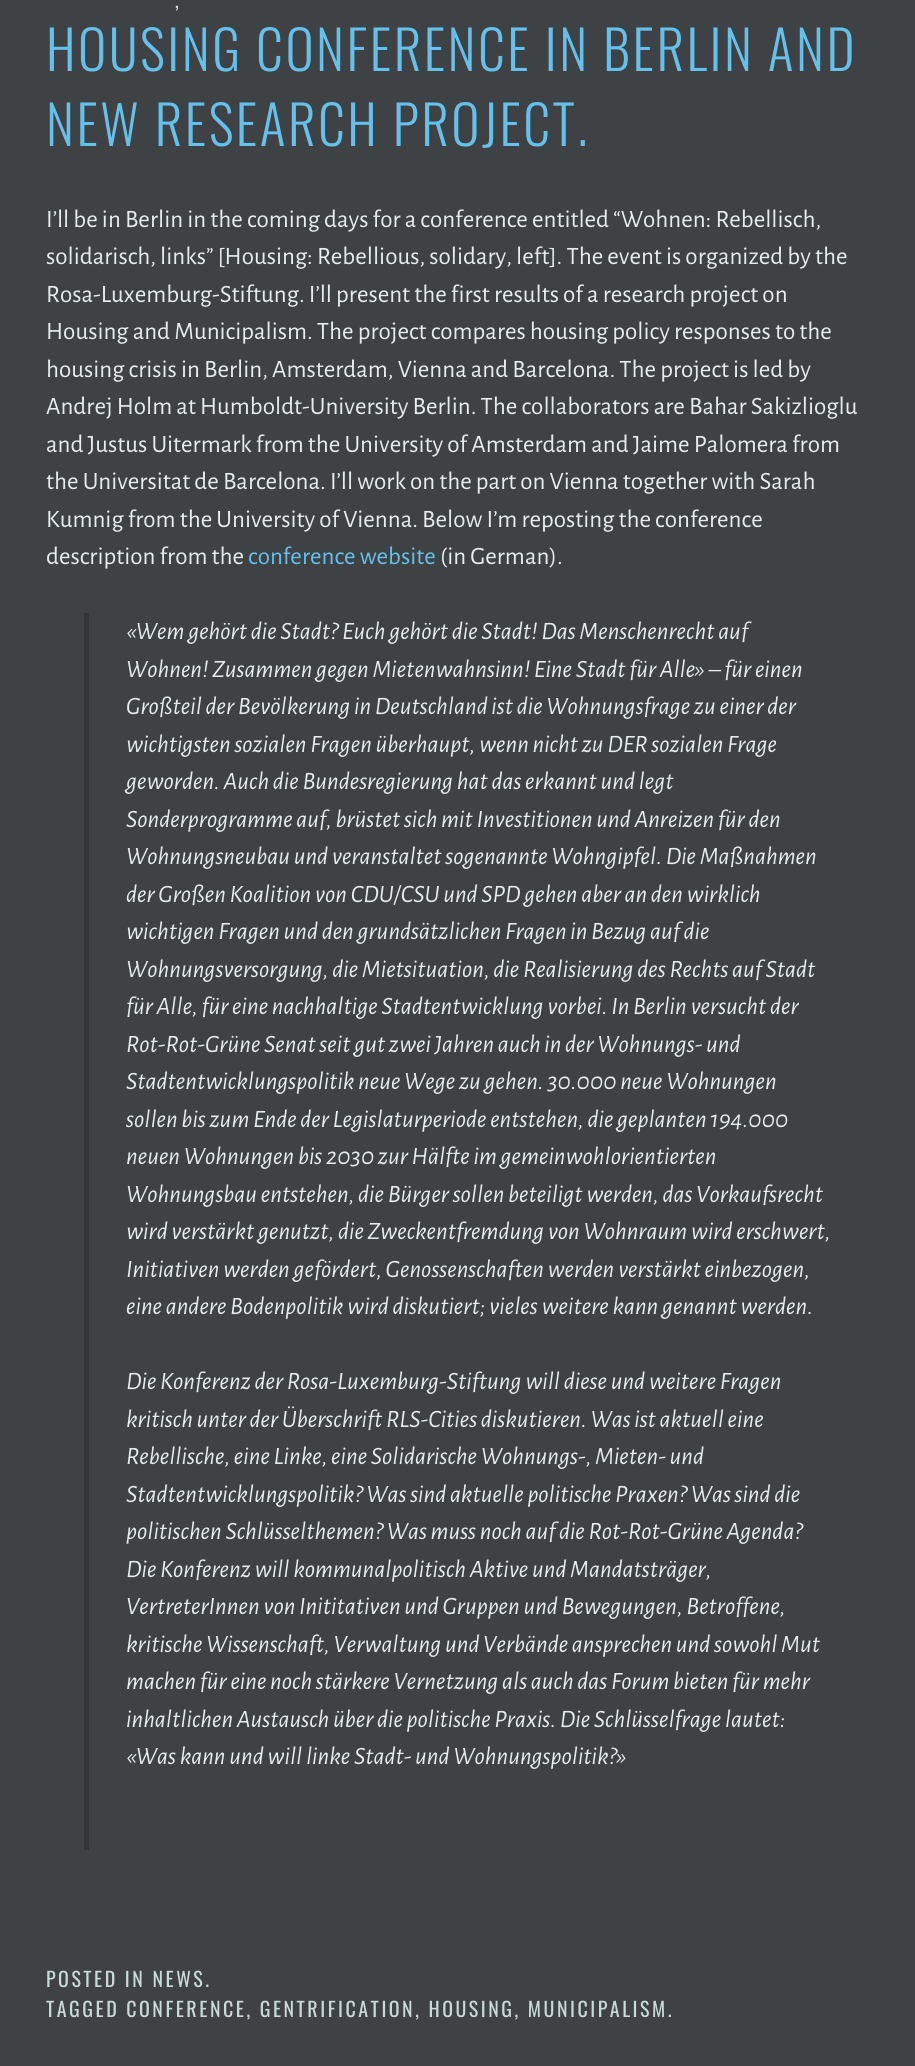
import math
import cairo


def write_spaced(ctx, x, y, s, letter, word):
	ctx.move_to(x, y)
	for ch in s:
		ctx.show_text(ch)
		ctx.rel_move_to(letter + word * (ch == ' '), 0)

def draw(ctx):
	ctx.set_source_rgb(0.243, 0.259, 0.267)
	ctx.paint()
	ctx.select_font_face('Oswald')
	ctx.set_font_size(20)
	ctx.set_source_rgb(0.792, 0.851, 0.851)
	write_spaced(ctx, 175, 8, ',', 2.5, 0)
	ctx.select_font_face('Oswald Light')
	ctx.set_font_size(53.75)
	ctx.set_source_rgb(0.4, 0.753, 0.925)
	write_spaced(ctx, 46, 71, 'HOUSING CONFERENCE IN BERLIN AND', 2.5, 0)
	write_spaced(ctx, 46, 146, 'NEW RESEARCH PROJECT.', 2.5, 0)
	ctx.select_font_face('Alegreya Sans')
	ctx.set_font_size(25)
	ctx.set_source_rgb(0.902, 0.929, 0.941)
	for x, y, s in [
		(46, 227, 'I’ll be in Berlin in the coming days for a conference entitled “Wohnen: Rebellisch,'),
		(46, 264, 'solidarisch, links” [Housing: Rebellious, solidary, left]. The event is organized by the'),
		(46, 302, 'Rosa-Luxemburg-Stiftung. I’ll present the first results of a research project on'),
		(46, 339, 'Housing and Municipalism. The project compares housing policy responses to the'),
		(46, 377, 'housing crisis in Berlin, Amsterdam, Vienna and Barcelona. The project is led by'),
		(46, 414, 'Andrej Holm at Humboldt-University Berlin. The collaborators are Bahar Sakizlioglu'),
		(46, 452, 'and Justus Uitermark from the University of Amsterdam and Jaime Palomera from'),
		(46, 489, 'the Universitat de Barcelona. I’ll work on the part on Vienna together with Sarah'),
		(46, 527, 'Kumnig from the University of Vienna. Below I’m reposting the conference'),
		(46, 564, 'description from the'),
	]:
		ctx.move_to(x, y)
		ctx.show_text(s)
	ctx.set_source_rgb(0.4, 0.753, 0.925)
	ctx.move_to(248, 564)
	ctx.show_text('conference website')
	ctx.set_source_rgb(0.902, 0.929, 0.941)
	ctx.move_to(440, 564)
	ctx.show_text('(in German).')
	ctx.set_source_rgb(0.192, 0.208, 0.216)
	ctx.rectangle(84, 613, 5, 1237)
	ctx.fill()
	ctx.select_font_face('Alegreya Sans', cairo.FONT_SLANT_ITALIC)
	ctx.set_source_rgb(0.902, 0.929, 0.941)
	for x, y, s in [
		(126, 639, '«Wem gehört die Stadt? Euch gehört die Stadt! Das Menschenrecht auf'),
		(126, 677, 'Wohnen! Zusammen gegen Mietenwahnsinn! Eine Stadt für Alle» – für einen'),
		(126, 714, 'Großteil der Bevölkerung in Deutschland ist die Wohnungsfrage zu einer der'),
		(126, 752, 'wichtigsten sozialen Fragen überhaupt, wenn nicht zu DER sozialen Frage'),
		(126, 789, 'geworden. Auch die Bundesregierung hat das erkannt und legt'),
		(126, 827, 'Sonderprogramme auf, brüstet sich mit Investitionen und Anreizen für den'),
		(126, 864, 'Wohnungsneubau und veranstaltet sogenannte Wohngipfel. Die Maßnahmen'),
		(126, 902, 'der Großen Koalition von CDU/CSU und SPD gehen aber an den wirklich'),
		(126, 939, 'wichtigen Fragen und den grundsätzlichen Fragen in Bezug auf die'),
		(126, 977, 'Wohnungsversorgung, die Mietsituation, die Realisierung des Rechts auf Stadt'),
		(126, 1014, 'für Alle, für eine nachhaltige Stadtentwicklung vorbei. In Berlin versucht der'),
		(126, 1052, 'Rot-Rot-Grüne Senat seit gut zwei Jahren auch in der Wohnungs- und'),
		(126, 1089, 'Stadtentwicklungspolitik neue Wege zu gehen. 30.000 neue Wohnungen'),
		(126, 1127, 'sollen bis zum Ende der Legislaturperiode entstehen, die geplanten 194.000'),
		(126, 1164, 'neuen Wohnungen bis 2030 zur Hälfte im gemeinwohlorientierten'),
		(126, 1202, 'Wohnungsbau entstehen, die Bürger sollen beteiligt werden, das Vorkaufsrecht'),
		(126, 1239, 'wird verstärkt genutzt, die Zweckentfremdung von Wohnraum wird erschwert,'),
		(126, 1277, 'Initiativen werden gefördert, Genossenschaften werden verstärkt einbezogen,'),
		(126, 1314, 'eine andere Bodenpolitik wird diskutiert; vieles weitere kann genannt werden.'),
		(126, 1389, 'Die Konferenz der Rosa-Luxemburg-Stiftung will diese und weitere Fragen'),
		(126, 1427, 'kritisch unter der Überschrift RLS-Cities diskutieren. Was ist aktuell eine'),
		(126, 1464, 'Rebellische, eine Linke, eine Solidarische Wohnungs-, Mieten- und'),
		(126, 1502, 'Stadtentwicklungspolitik? Was sind aktuelle politische Praxen? Was sind die'),
		(126, 1539, 'politischen Schlüsselthemen? Was muss noch auf die Rot-Rot-Grüne Agenda?'),
		(126, 1577, 'Die Konferenz will kommunalpolitisch Aktive und Mandatsträger,'),
		(126, 1614, 'VertreterInnen von Inititativen und Gruppen und Bewegungen, Betroffene,'),
		(126, 1652, 'kritische Wissenschaft, Verwaltung und Verbände ansprechen und sowohl Mut'),
		(126, 1689, 'machen für eine noch stärkere Vernetzung als auch das Forum bieten für mehr'),
		(126, 1727, 'inhaltlichen Austausch über die politische Praxis. Die Schlüsselfrage lautet:'),
		(126, 1764, '«Was kann und will linke Stadt- und Wohnungspolitik?»'),
	]:
		ctx.move_to(x, y)
		ctx.show_text(s)
	ctx.select_font_face('Oswald')
	ctx.set_font_size(20)
	ctx.set_source_rgb(0.792, 0.851, 0.851)
	write_spaced(ctx, 46, 1987, 'POSTED IN NEWS.', 2.5, 0)
	write_spaced(ctx, 46, 2017, 'TAGGED CONFERENCE, GENTRIFICATION, HOUSING, MUNICIPALISM.', 2.5, 0)


surface = cairo.ImageSurface(cairo.FORMAT_RGB24, 915, 2066)
ctx = cairo.Context(surface)
options = cairo.FontOptions()
options.set_hint_metrics(cairo.HINT_METRICS_OFF)
options.set_hint_style(cairo.HINT_STYLE_NONE)
ctx.set_font_options(options)
ctx.set_miter_limit(4)
draw(ctx)
surface.write_to_png('image.png')
